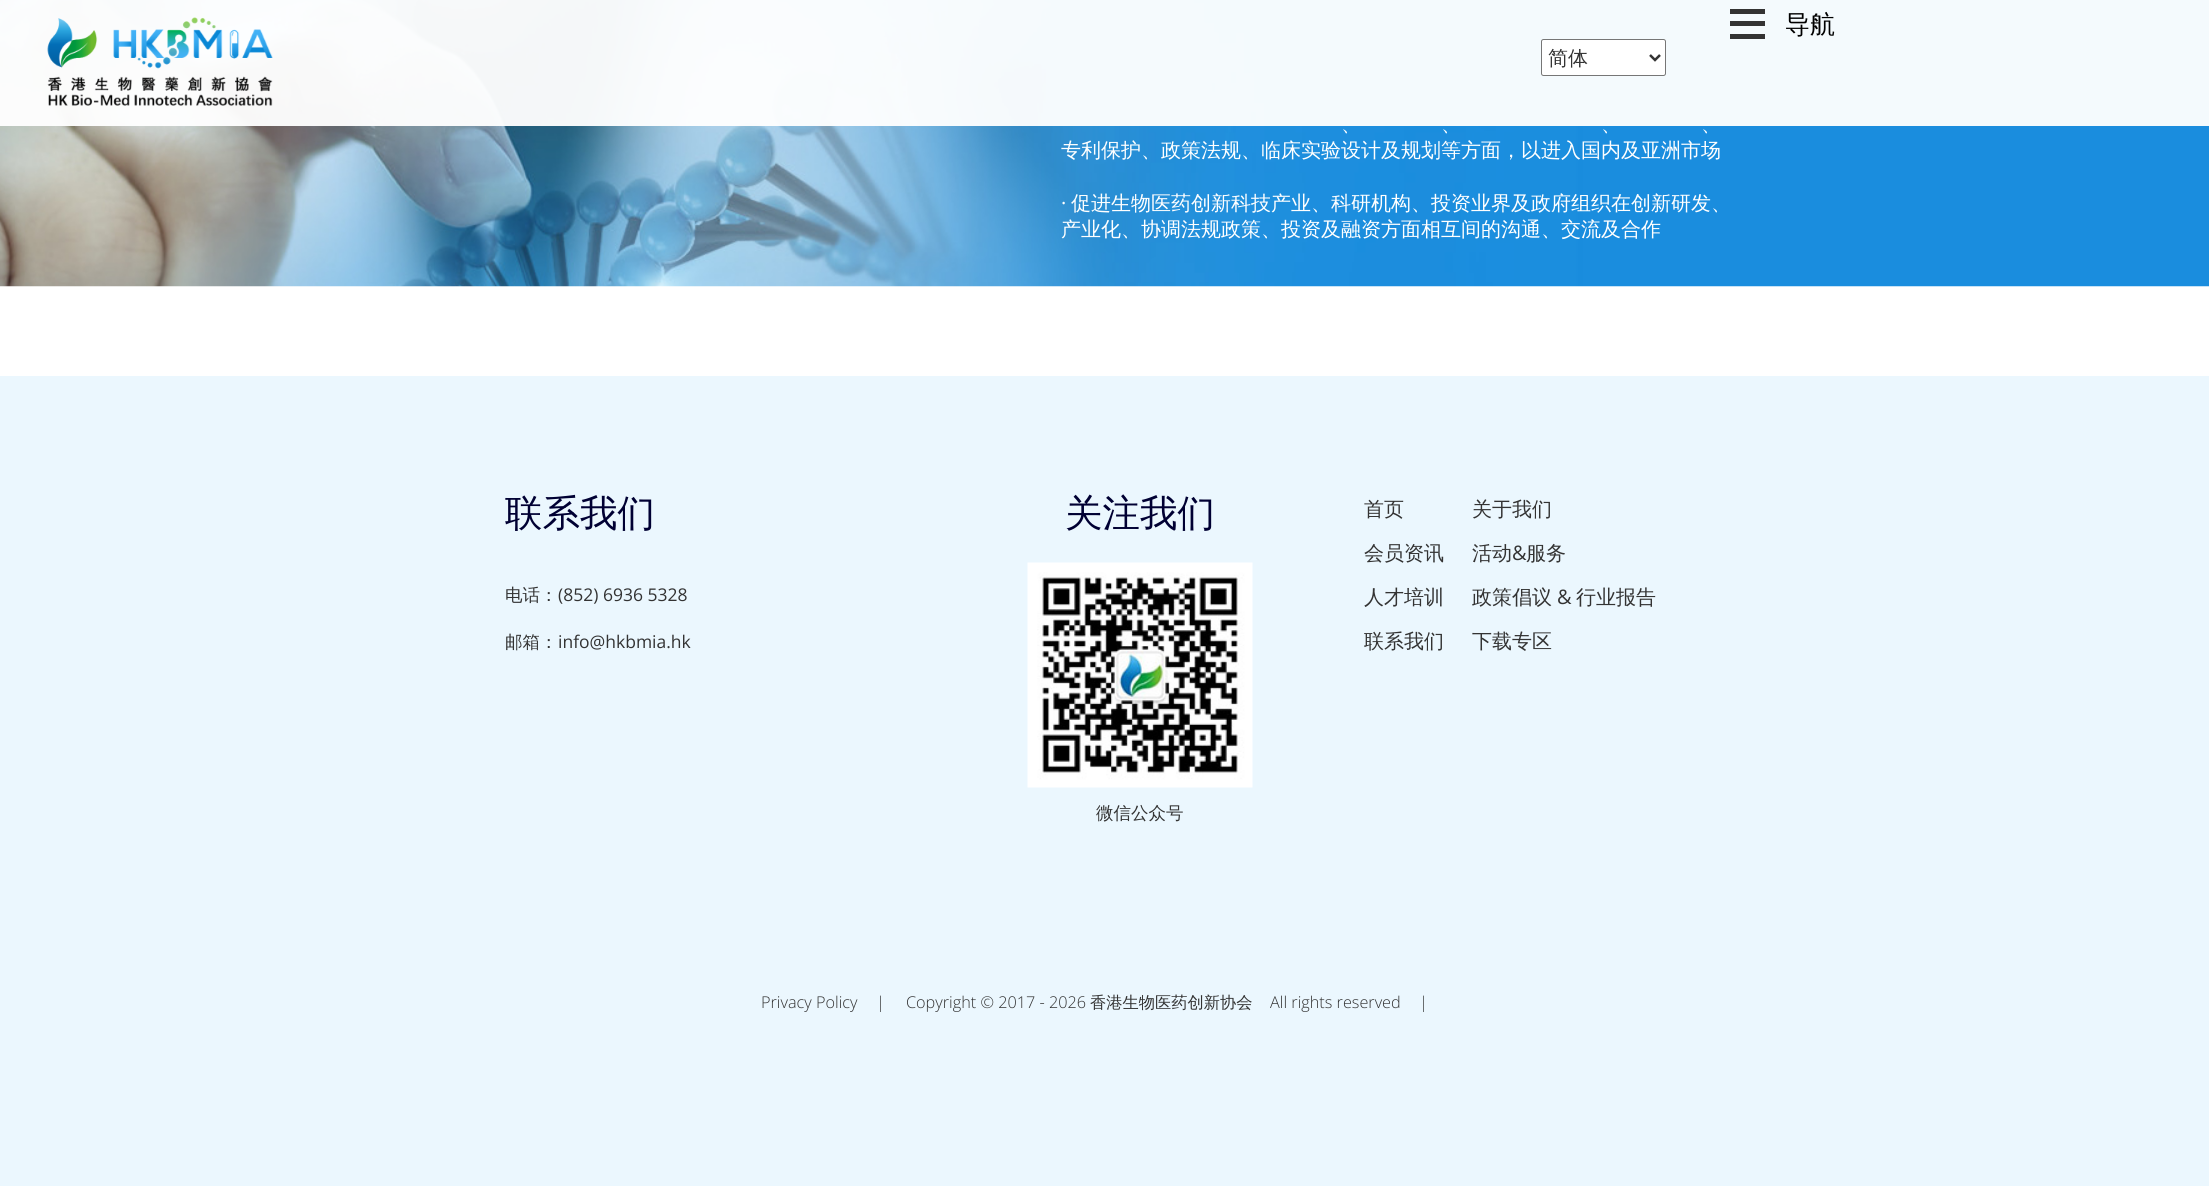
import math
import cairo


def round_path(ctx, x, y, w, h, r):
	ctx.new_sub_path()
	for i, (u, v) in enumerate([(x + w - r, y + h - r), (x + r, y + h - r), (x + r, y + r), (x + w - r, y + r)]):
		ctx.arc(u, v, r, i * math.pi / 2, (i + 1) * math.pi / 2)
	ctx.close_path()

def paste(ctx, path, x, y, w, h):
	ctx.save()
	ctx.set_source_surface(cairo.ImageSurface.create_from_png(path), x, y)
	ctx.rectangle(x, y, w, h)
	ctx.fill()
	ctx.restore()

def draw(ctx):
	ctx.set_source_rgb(1, 1, 1)
	ctx.paint()
	paste(ctx, 'media/2.png', 0, 0, 2209, 287)
	ctx.set_source_rgba(1, 1, 1, 0.95)
	ctx.rectangle(0, 0, 2209, 126)
	ctx.fill()
	paste(ctx, 'media/1.png', 47, 17, 226, 89)
	ctx.set_source_rgb(1, 1, 1)
	round_path(ctx, 1541.5, 39.5, 124, 36, 2)
	ctx.fill_preserve()
	ctx.set_source_rgb(0.463, 0.463, 0.463)
	ctx.set_line_width(1)
	ctx.stroke()
	ctx.new_path()
	ctx.move_to(1650, 55)
	ctx.line_to(1655, 60)
	ctx.line_to(1660, 55)
	ctx.set_source_rgb(0.2, 0.2, 0.2)
	ctx.set_line_width(2.5)
	ctx.stroke()
	ctx.select_font_face('WenQuanYi Zen Hei Medium')
	ctx.set_font_size(20)
	ctx.move_to(1548, 65)
	ctx.show_text('简体')
	ctx.rectangle(1730, 21, 35, 5)
	ctx.rectangle(1730, 9, 35, 5)
	ctx.rectangle(1730, 34, 35, 5)
	ctx.fill()
	ctx.set_font_size(25)
	ctx.set_source_rgb(0, 0, 0)
	ctx.move_to(1785, 33)
	ctx.show_text('导航')
	ctx.set_font_size(20)
	ctx.set_source_rgb(1, 1, 1)
	for x, y, s in [
		(1341, 131, '、'),
		(1441, 131, '、'),
		(1601, 131, '、'),
		(1701, 131, '、'),
		(1061, 157, '专利保护、政策法规、临床实验设计及规划等方面，以进入国内及亚洲市场'),
	]:
		ctx.move_to(x, y)
		ctx.show_text(s)
	ctx.select_font_face('Open Sans')
	ctx.move_to(1061, 210)
	ctx.show_text('·')
	ctx.select_font_face('WenQuanYi Zen Hei Medium')
	ctx.move_to(1071, 210)
	ctx.show_text('促进生物医药创新科技产业、科研机构、投资业界及政府组织在创新研发、')
	ctx.move_to(1061, 236)
	ctx.show_text('产业化、协调法规政策、投资及融资方面相互间的沟通、交流及合作')
	ctx.set_source_rgb(0.918, 0.965, 0.996)
	ctx.rectangle(0, 376, 2209, 810)
	ctx.fill()
	ctx.set_font_size(37.5)
	ctx.set_source_rgb(0, 0, 0.2)
	ctx.move_to(505, 526)
	ctx.show_text('联系我们')
	ctx.set_font_size(17.5)
	ctx.set_source_rgb(0.2, 0.2, 0.2)
	ctx.move_to(505, 601)
	ctx.show_text('电话：')
	ctx.select_font_face('Open Sans')
	ctx.move_to(558, 601)
	ctx.show_text('(852) 6936 5328')
	ctx.select_font_face('WenQuanYi Zen Hei Medium')
	ctx.move_to(505, 648)
	ctx.show_text('邮箱：')
	ctx.select_font_face('Open Sans')
	ctx.move_to(558, 648)
	ctx.show_text('info@hkbmia.hk')
	ctx.select_font_face('WenQuanYi Zen Hei Medium')
	ctx.set_font_size(37.5)
	ctx.set_source_rgb(0, 0, 0.2)
	ctx.move_to(1065, 526)
	ctx.show_text('关注我们')
	paste(ctx, 'media/3.png', 1027, 562, 226, 226)
	ctx.set_font_size(17.5)
	ctx.set_source_rgb(0.2, 0.2, 0.2)
	ctx.move_to(1096, 819)
	ctx.show_text('微信公众号')
	ctx.set_font_size(20)
	for x, y, s in [
		(1364, 516, '首页'),
		(1364, 560, '会员资讯'),
		(1364, 604, '人才培训'),
		(1364, 648, '联系我们'),
		(1472, 516, '关于我们'),
		(1472, 560, '活动'),
	]:
		ctx.move_to(x, y)
		ctx.show_text(s)
	ctx.select_font_face('Open Sans')
	ctx.move_to(1512, 560)
	ctx.show_text('&')
	ctx.select_font_face('WenQuanYi Zen Hei Medium')
	ctx.move_to(1526, 560)
	ctx.show_text('服务')
	ctx.move_to(1472, 604)
	ctx.show_text('政策倡议')
	ctx.select_font_face('Open Sans')
	ctx.move_to(1557, 604)
	ctx.show_text('&')
	ctx.select_font_face('WenQuanYi Zen Hei Medium')
	ctx.move_to(1576, 604)
	ctx.show_text('行业报告')
	ctx.move_to(1472, 648)
	ctx.show_text('下载专区')
	ctx.select_font_face('Open Sans Light')
	ctx.set_font_size(16.25)
	for x, y, s in [
		(761, 1008, 'Privacy Policy'),
		(876, 1008, '|'),
		(906, 1008, 'Copyright © 2017 - 2026'),
	]:
		ctx.move_to(x, y)
		ctx.show_text(s)
	ctx.select_font_face('WenQuanYi Zen Hei Medium')
	ctx.move_to(1090, 1008)
	ctx.show_text('香港生物医药创新协会')
	ctx.select_font_face('Open Sans Light')
	ctx.move_to(1270, 1008)
	ctx.show_text('All rights reserved')
	ctx.move_to(1419, 1008)
	ctx.show_text('|')


surface = cairo.ImageSurface(cairo.FORMAT_RGB24, 2209, 1186)
ctx = cairo.Context(surface)
options = cairo.FontOptions()
options.set_hint_metrics(cairo.HINT_METRICS_OFF)
options.set_hint_style(cairo.HINT_STYLE_NONE)
ctx.set_font_options(options)
ctx.set_miter_limit(4)
draw(ctx)
surface.write_to_png('image.png')
